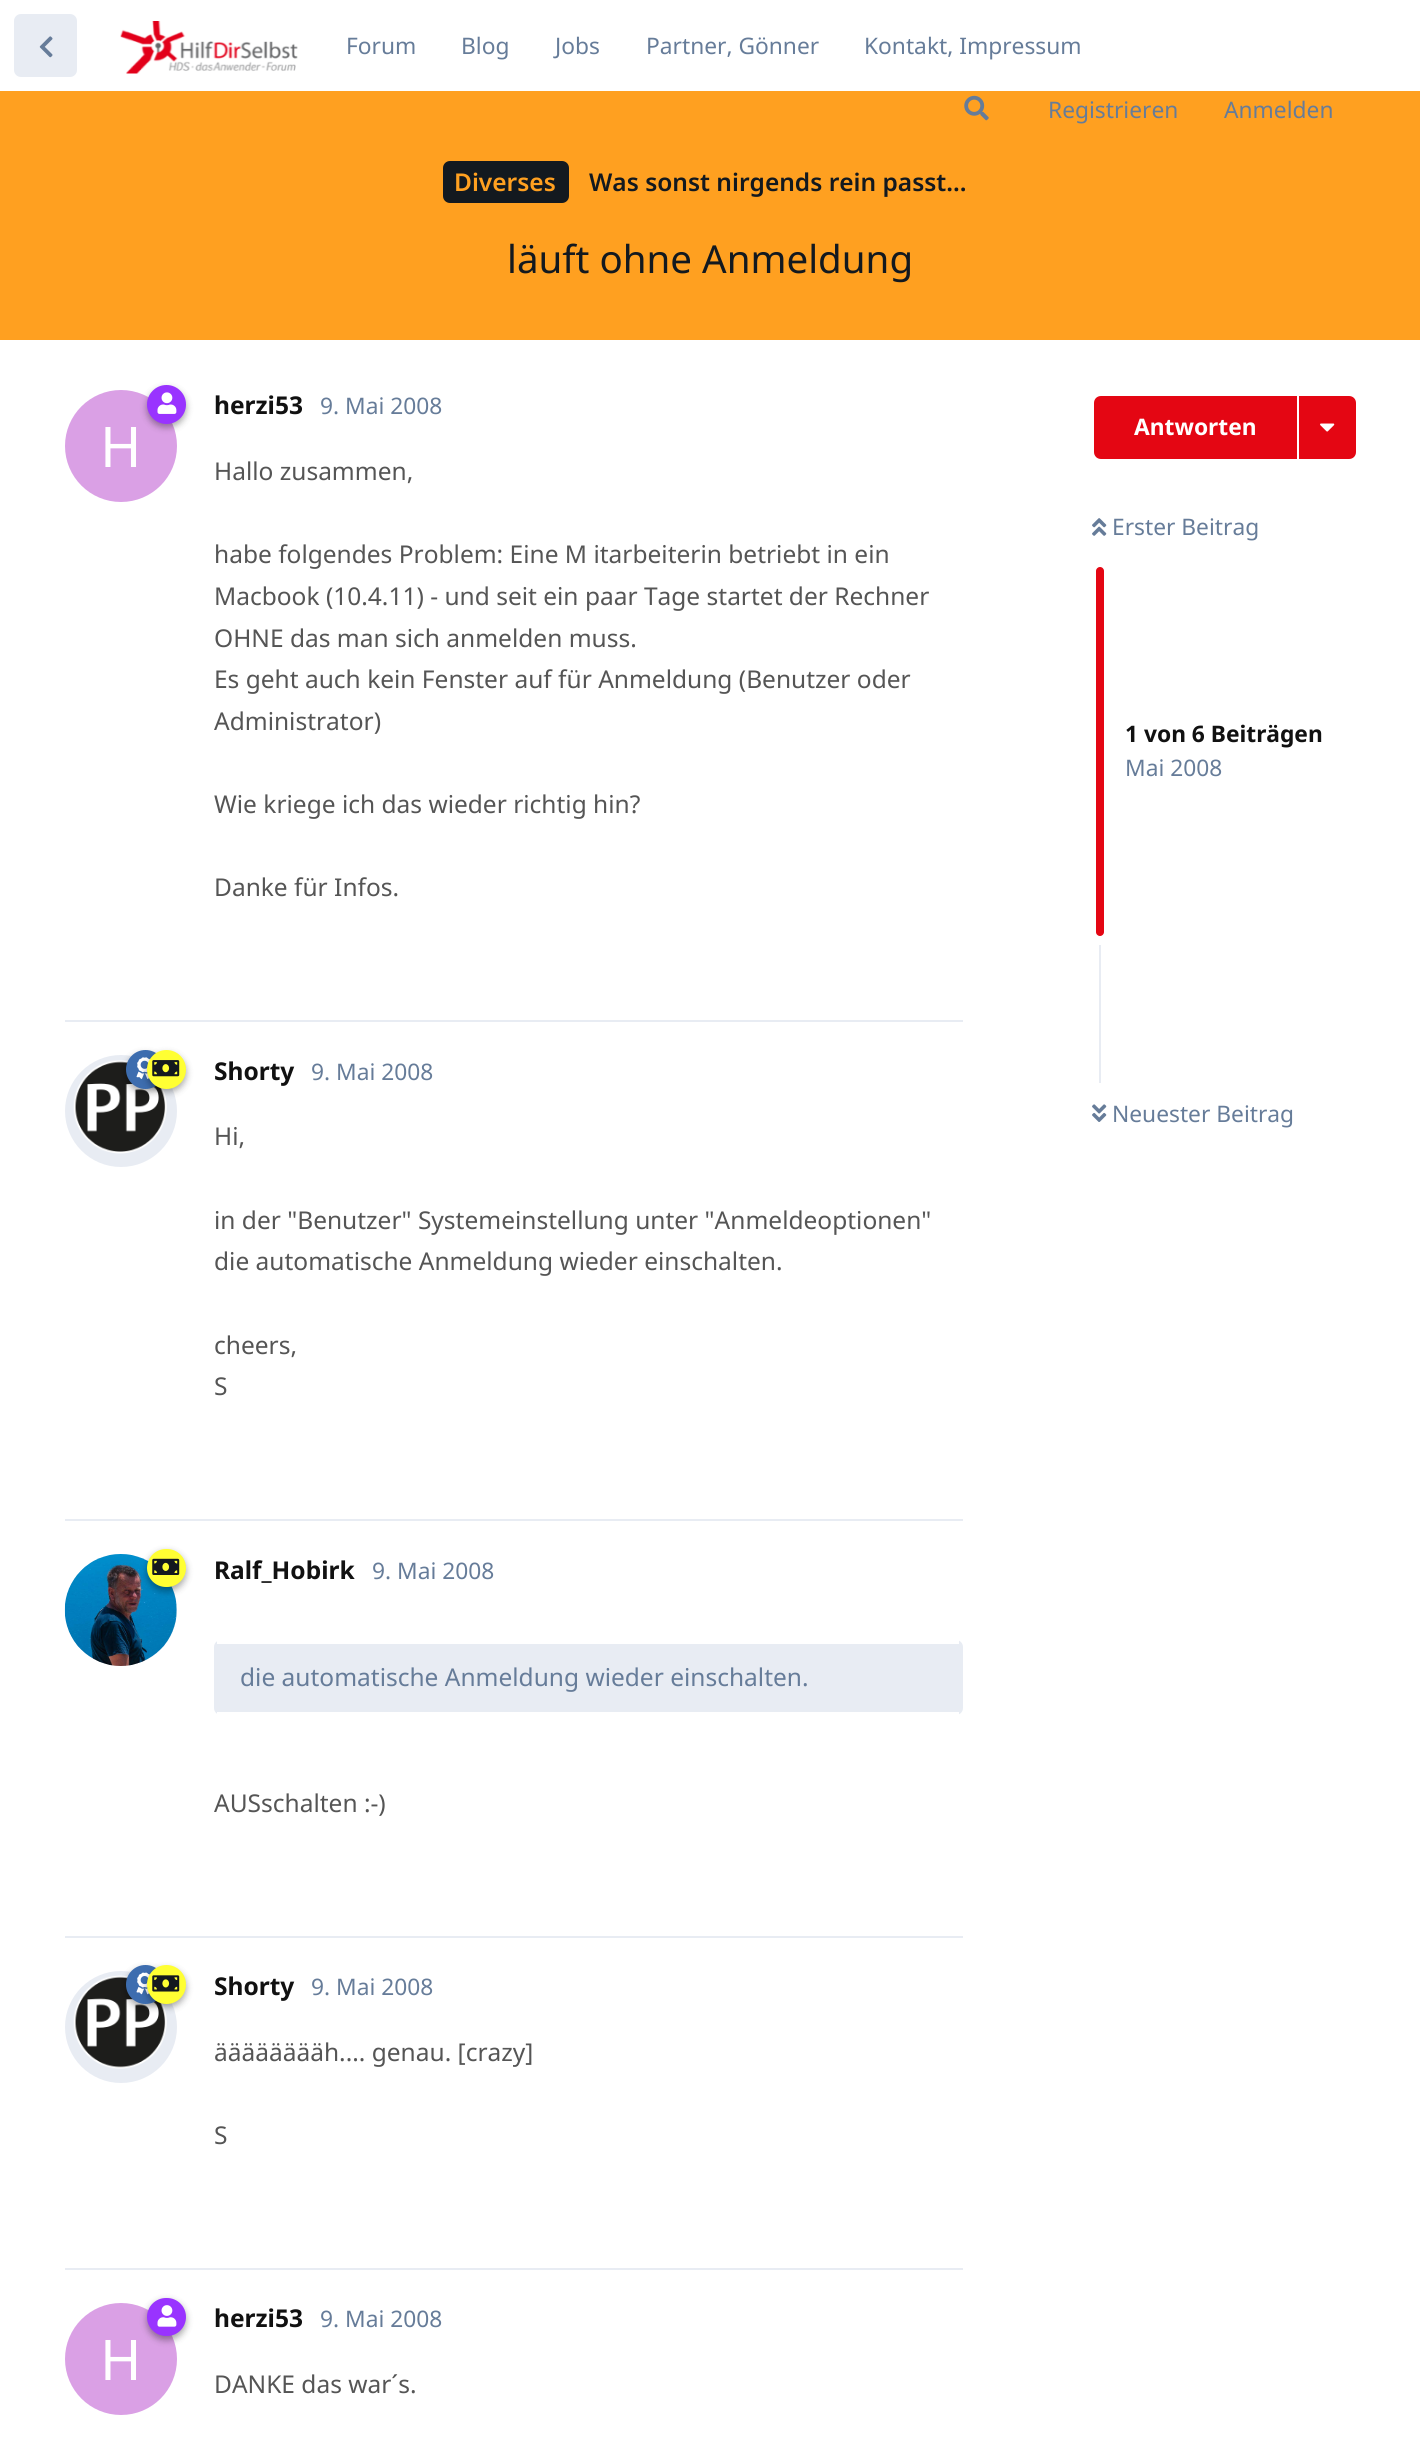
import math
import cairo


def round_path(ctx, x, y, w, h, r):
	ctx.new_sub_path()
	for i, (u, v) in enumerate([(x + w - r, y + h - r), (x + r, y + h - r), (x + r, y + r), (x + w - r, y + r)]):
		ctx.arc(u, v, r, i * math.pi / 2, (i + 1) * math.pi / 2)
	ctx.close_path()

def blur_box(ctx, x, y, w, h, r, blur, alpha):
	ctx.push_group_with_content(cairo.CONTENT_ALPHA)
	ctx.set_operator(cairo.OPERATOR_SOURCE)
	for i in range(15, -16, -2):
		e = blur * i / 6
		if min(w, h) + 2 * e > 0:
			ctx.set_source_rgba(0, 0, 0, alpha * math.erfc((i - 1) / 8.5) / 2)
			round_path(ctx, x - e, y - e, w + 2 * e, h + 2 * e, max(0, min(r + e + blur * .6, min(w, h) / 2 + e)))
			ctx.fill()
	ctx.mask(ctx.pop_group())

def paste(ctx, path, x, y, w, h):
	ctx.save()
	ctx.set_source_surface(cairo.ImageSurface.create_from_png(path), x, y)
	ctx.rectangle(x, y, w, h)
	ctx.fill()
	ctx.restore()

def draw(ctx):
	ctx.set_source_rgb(1, 1, 1)
	ctx.paint()
	ctx.set_source_rgb(0.91, 0.925, 0.953)
	round_path(ctx, 14, 14, 63, 63, 7)
	ctx.fill()
	paste(ctx, 'media/1.png', 39, 36, 14, 22)
	paste(ctx, 'media/2.png', 120, 21, 178, 53)
	ctx.select_font_face('Noto Sans')
	ctx.set_font_size(22.75)
	ctx.set_source_rgb(0.4, 0.486, 0.6)
	for x, y, s in [
		(346, 54, 'Forum'),
		(461, 54, 'Blog'),
		(555, 54, 'Jobs'),
		(646, 54, 'Partner, Gönner'),
		(864, 54, 'Kontakt, Impressum'),
	]:
		ctx.move_to(x, y)
		ctx.show_text(s)
	ctx.set_source_rgb(1, 0.627, 0.125)
	ctx.rectangle(0, 91, 1420, 249)
	ctx.fill()
	paste(ctx, 'media/3.png', 964, 95, 25, 26)
	ctx.set_source_rgb(0.4, 0.486, 0.6)
	ctx.move_to(1048, 118)
	ctx.show_text('Registrieren')
	ctx.move_to(1224, 118)
	ctx.show_text('Anmelden')
	ctx.set_source_rgb(0.078, 0.098, 0.122)
	round_path(ctx, 443, 161, 126, 42, 7)
	ctx.fill()
	ctx.select_font_face('Noto Sans SemiBold')
	ctx.set_font_size(24.5)
	ctx.set_source_rgb(1, 0.627, 0.125)
	ctx.move_to(454, 191)
	ctx.show_text('Diverses')
	ctx.set_source_rgb(0.078, 0.098, 0.122)
	ctx.move_to(589, 191)
	ctx.show_text('Was sonst nirgends rein passt...')
	ctx.select_font_face('Noto Sans')
	ctx.set_font_size(38.5)
	ctx.move_to(507, 273)
	ctx.show_text('läuft ohne Anmeldung')
	ctx.set_source_rgb(0.91, 0.925, 0.953)
	ctx.rectangle(65, 1020, 898, 2)
	ctx.fill()
	ctx.set_source_rgb(0.855, 0.627, 0.898)
	ctx.arc(121, 446, 56, 0, 2 * math.pi)
	ctx.fill()
	ctx.set_source_rgb(0, 0, 0)
	blur_box(ctx, 147, 389, 39, 38, 19, 3.5, 0.35)
	ctx.set_source_rgb(0.6, 0.2, 1)
	ctx.arc(166.5, 404.5, 19.5, 0, 2 * math.pi)
	ctx.fill()
	paste(ctx, 'media/4.png', 157, 392, 20, 22)
	ctx.select_font_face('Noto Sans', cairo.FONT_SLANT_NORMAL, cairo.FONT_WEIGHT_BOLD)
	ctx.set_font_size(24.5)
	ctx.set_source_rgb(0.067, 0.067, 0.067)
	ctx.move_to(214, 414)
	ctx.show_text('herzi53')
	ctx.select_font_face('Noto Sans')
	ctx.set_font_size(56)
	ctx.set_source_rgb(1, 1, 1)
	ctx.move_to(100, 467)
	ctx.show_text('H')
	ctx.set_font_size(22.75)
	ctx.set_source_rgb(0.4, 0.486, 0.6)
	ctx.move_to(320, 414)
	ctx.show_text('9. Mai 2008')
	ctx.set_font_size(24.5)
	ctx.set_source_rgb(0.333, 0.333, 0.333)
	for x, y, s in [
		(214, 480, 'Hallo zusammen,'),
		(214, 563, 'habe folgendes Problem: Eine M itarbeiterin betriebt in ein'),
		(214, 605, 'Macbook (10.4.11) - und seit ein paar Tage startet der Rechner'),
		(214, 647, 'OHNE das man sich anmelden muss.'),
		(214, 688, 'Es geht auch kein Fenster auf für Anmeldung (Benutzer oder'),
		(214, 730, 'Administrator)'),
		(214, 813, 'Wie kriege ich das wieder richtig hin?'),
		(214, 896, 'Danke für Infos.'),
	]:
		ctx.move_to(x, y)
		ctx.show_text(s)
	ctx.set_source_rgb(0.91, 0.925, 0.953)
	ctx.rectangle(65, 1519, 898, 2)
	ctx.fill()
	ctx.arc(121, 1111, 56, 0, 2 * math.pi)
	ctx.fill()
	paste(ctx, 'media/7.png', 73, 1060, 94, 94)
	ctx.set_source_rgb(0, 0, 0)
	blur_box(ctx, 126, 1054, 39, 38, 19, 3.5, 0.35)
	ctx.set_source_rgb(0.239, 0.427, 0.686)
	ctx.arc(145.5, 1069.5, 19.5, 0, 2 * math.pi)
	ctx.fill()
	paste(ctx, 'media/5.png', 136, 1057, 14, 22)
	ctx.set_source_rgb(0, 0, 0)
	blur_box(ctx, 147, 1054, 39, 38, 19, 3.5, 0.35)
	ctx.set_source_rgb(1, 1, 0.2)
	ctx.arc(166.5, 1069.5, 19.5, 0, 2 * math.pi)
	ctx.fill()
	paste(ctx, 'media/6.png', 152, 1060, 28, 17)
	ctx.select_font_face('Noto Sans', cairo.FONT_SLANT_NORMAL, cairo.FONT_WEIGHT_BOLD)
	ctx.set_source_rgb(0.067, 0.067, 0.067)
	ctx.move_to(214, 1080)
	ctx.show_text('Shorty')
	ctx.select_font_face('Noto Sans')
	ctx.set_font_size(22.75)
	ctx.set_source_rgb(0.4, 0.486, 0.6)
	ctx.move_to(311, 1080)
	ctx.show_text('9. Mai 2008')
	ctx.set_font_size(24.5)
	ctx.set_source_rgb(0.333, 0.333, 0.333)
	for x, y, s in [
		(214, 1145, 'Hi,'),
		(214, 1229, 'in der "Benutzer" Systemeinstellung unter "Anmeldeoptionen"'),
		(214, 1270, 'die automatische Anmeldung wieder einschalten.'),
		(214, 1354, 'cheers,'),
		(214, 1395, 'S'),
	]:
		ctx.move_to(x, y)
		ctx.show_text(s)
	ctx.set_source_rgb(0.91, 0.925, 0.953)
	ctx.rectangle(65, 1936, 898, 2)
	ctx.fill()
	ctx.arc(121, 1610, 56, 0, 2 * math.pi)
	ctx.fill()
	paste(ctx, 'media/9.png', 64, 1554, 113, 112)
	ctx.set_source_rgb(0, 0, 0)
	blur_box(ctx, 147, 1552, 39, 39, 19.5, 3.5, 0.35)
	ctx.set_source_rgb(1, 1, 0.2)
	round_path(ctx, 147, 1549, 39, 38, 19)
	ctx.fill()
	paste(ctx, 'media/8.png', 152, 1558, 28, 17)
	ctx.select_font_face('Noto Sans', cairo.FONT_SLANT_NORMAL, cairo.FONT_WEIGHT_BOLD)
	ctx.set_source_rgb(0.067, 0.067, 0.067)
	ctx.move_to(214, 1579)
	ctx.show_text('Ralf_Hobirk')
	ctx.select_font_face('Noto Sans')
	ctx.set_font_size(22.75)
	ctx.set_source_rgb(0.4, 0.486, 0.6)
	ctx.move_to(372, 1579)
	ctx.show_text('9. Mai 2008')
	ctx.set_source_rgb(0.91, 0.925, 0.953)
	round_path(ctx, 214, 1640, 749, 75, 7)
	ctx.fill()
	ctx.set_source_rgb(1, 1, 1)
	ctx.rectangle(217, 1640, 742, 4)
	ctx.fill()
	ctx.rectangle(217, 1712, 742, 3)
	ctx.fill()
	ctx.set_font_size(24.5)
	ctx.set_source_rgb(0.4, 0.486, 0.6)
	ctx.move_to(240, 1686)
	ctx.show_text('die automatische Anmeldung wieder einschalten.')
	ctx.set_source_rgb(0.333, 0.333, 0.333)
	ctx.move_to(214, 1812)
	ctx.show_text('AUSschalten :-)')
	ctx.set_source_rgb(0.91, 0.925, 0.953)
	ctx.rectangle(65, 2268, 898, 2)
	ctx.fill()
	ctx.arc(121, 2027, 56, 0, 2 * math.pi)
	ctx.fill()
	paste(ctx, 'media/12.png', 73, 1975, 94, 94)
	ctx.set_source_rgb(0, 0, 0)
	blur_box(ctx, 126, 1969, 39, 38, 19, 3.5, 0.35)
	ctx.set_source_rgb(0.239, 0.427, 0.686)
	ctx.arc(145.5, 1984.5, 19.5, 0, 2 * math.pi)
	ctx.fill()
	paste(ctx, 'media/10.png', 136, 1972, 14, 23)
	ctx.set_source_rgb(0, 0, 0)
	blur_box(ctx, 147, 1969, 39, 38, 19, 3.5, 0.35)
	ctx.set_source_rgb(1, 1, 0.2)
	ctx.arc(166.5, 1984.5, 19.5, 0, 2 * math.pi)
	ctx.fill()
	paste(ctx, 'media/11.png', 152, 1975, 28, 17)
	ctx.select_font_face('Noto Sans', cairo.FONT_SLANT_NORMAL, cairo.FONT_WEIGHT_BOLD)
	ctx.set_source_rgb(0.067, 0.067, 0.067)
	ctx.move_to(214, 1995)
	ctx.show_text('Shorty')
	ctx.select_font_face('Noto Sans')
	ctx.set_font_size(22.75)
	ctx.set_source_rgb(0.4, 0.486, 0.6)
	ctx.move_to(311, 1995)
	ctx.show_text('9. Mai 2008')
	ctx.set_font_size(24.5)
	ctx.set_source_rgb(0.333, 0.333, 0.333)
	ctx.move_to(214, 2061)
	ctx.show_text('ääääääääh.... genau. [crazy]')
	ctx.move_to(214, 2144)
	ctx.show_text('S')
	ctx.set_source_rgb(0.855, 0.627, 0.898)
	ctx.new_path()
	ctx.arc(121, 2359, 56, 0, 2 * math.pi)
	ctx.fill()
	ctx.set_source_rgb(0, 0, 0)
	blur_box(ctx, 147, 2301, 39, 39, 19.5, 3.5, 0.35)
	ctx.set_source_rgb(0.6, 0.2, 1)
	round_path(ctx, 147, 2298, 39, 38, 19)
	ctx.fill()
	paste(ctx, 'media/13.png', 157, 2305, 20, 22)
	ctx.select_font_face('Noto Sans', cairo.FONT_SLANT_NORMAL, cairo.FONT_WEIGHT_BOLD)
	ctx.set_source_rgb(0.067, 0.067, 0.067)
	ctx.move_to(214, 2327)
	ctx.show_text('herzi53')
	ctx.select_font_face('Noto Sans')
	ctx.set_font_size(56)
	ctx.set_source_rgb(1, 1, 1)
	ctx.move_to(100, 2380)
	ctx.show_text('H')
	ctx.set_font_size(22.75)
	ctx.set_source_rgb(0.4, 0.486, 0.6)
	ctx.move_to(320, 2327)
	ctx.show_text('9. Mai 2008')
	ctx.set_font_size(24.5)
	ctx.set_source_rgb(0.333, 0.333, 0.333)
	ctx.move_to(214, 2393)
	ctx.show_text('DANKE das war´s.')
	ctx.set_source_rgb(0.894, 0.024, 0.075)
	ctx.new_path()
	ctx.move_to(1101, 396)
	ctx.line_to(1297, 396)
	ctx.line_to(1297, 459)
	ctx.line_to(1101, 459)
	ctx.curve_to(1097, 459, 1094, 456, 1094, 452)
	ctx.line_to(1094, 403)
	ctx.curve_to(1094, 399, 1097, 396, 1101, 396)
	ctx.close_path()
	ctx.fill()
	ctx.select_font_face('Noto Sans', cairo.FONT_SLANT_NORMAL, cairo.FONT_WEIGHT_BOLD)
	ctx.set_font_size(22.75)
	ctx.set_source_rgb(1, 1, 1)
	ctx.move_to(1134, 435)
	ctx.show_text('Antworten')
	ctx.set_source_rgb(0.894, 0.024, 0.075)
	ctx.new_path()
	ctx.move_to(1299, 396)
	ctx.line_to(1349, 396)
	ctx.curve_to(1353, 396, 1356, 399, 1356, 403)
	ctx.line_to(1356, 452)
	ctx.curve_to(1356, 456, 1353, 459, 1349, 459)
	ctx.line_to(1299, 459)
	ctx.close_path()
	ctx.fill()
	paste(ctx, 'media/14.png', 1320, 423, 15, 9)
	paste(ctx, 'media/15.png', 1092, 518, 15, 18)
	ctx.select_font_face('Noto Sans')
	ctx.set_source_rgb(0.4, 0.486, 0.6)
	ctx.move_to(1112, 535)
	ctx.show_text('Erster Beitrag')
	ctx.set_source_rgb(0.894, 0.024, 0.075)
	round_path(ctx, 1096, 567, 8, 369, 4)
	ctx.fill()
	ctx.select_font_face('Noto Sans', cairo.FONT_SLANT_NORMAL, cairo.FONT_WEIGHT_BOLD)
	ctx.set_source_rgb(0.067, 0.067, 0.067)
	ctx.move_to(1125, 742)
	ctx.show_text('1 von 6 Beiträgen')
	ctx.select_font_face('Noto Sans')
	ctx.set_source_rgb(0.4, 0.486, 0.6)
	ctx.move_to(1125, 776)
	ctx.show_text('Mai 2008')
	ctx.set_source_rgb(0.91, 0.925, 0.953)
	ctx.rectangle(1099, 945, 2, 138)
	ctx.fill()
	paste(ctx, 'media/16.png', 1092, 1104, 15, 18)
	ctx.set_source_rgb(0.4, 0.486, 0.6)
	ctx.move_to(1112, 1122)
	ctx.show_text('Neuester Beitrag')


surface = cairo.ImageSurface(cairo.FORMAT_RGB24, 1420, 2441)
ctx = cairo.Context(surface)
options = cairo.FontOptions()
options.set_hint_metrics(cairo.HINT_METRICS_OFF)
options.set_hint_style(cairo.HINT_STYLE_NONE)
ctx.set_font_options(options)
ctx.set_miter_limit(4)
draw(ctx)
surface.write_to_png('image.png')
